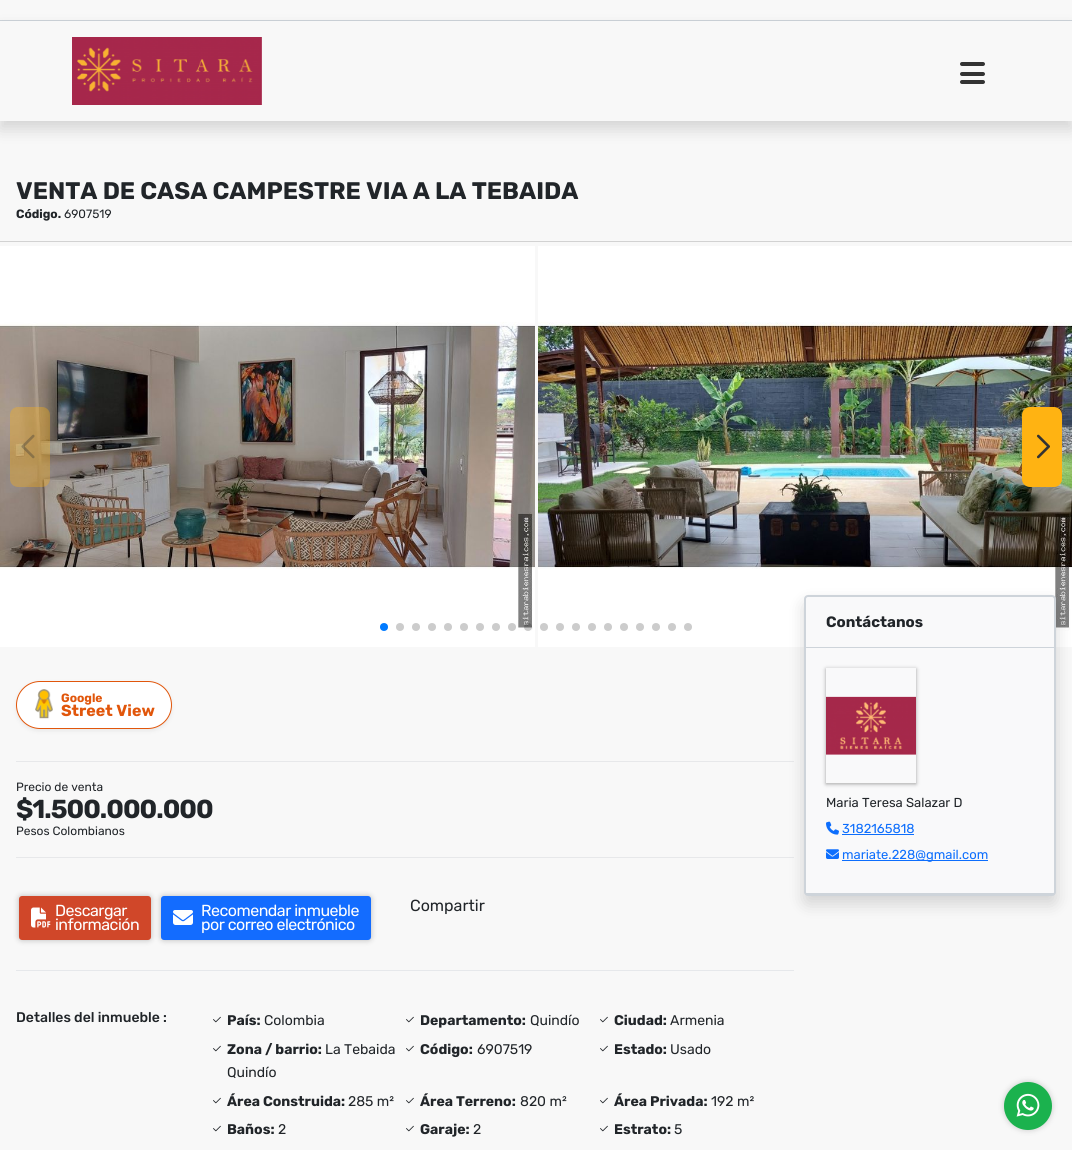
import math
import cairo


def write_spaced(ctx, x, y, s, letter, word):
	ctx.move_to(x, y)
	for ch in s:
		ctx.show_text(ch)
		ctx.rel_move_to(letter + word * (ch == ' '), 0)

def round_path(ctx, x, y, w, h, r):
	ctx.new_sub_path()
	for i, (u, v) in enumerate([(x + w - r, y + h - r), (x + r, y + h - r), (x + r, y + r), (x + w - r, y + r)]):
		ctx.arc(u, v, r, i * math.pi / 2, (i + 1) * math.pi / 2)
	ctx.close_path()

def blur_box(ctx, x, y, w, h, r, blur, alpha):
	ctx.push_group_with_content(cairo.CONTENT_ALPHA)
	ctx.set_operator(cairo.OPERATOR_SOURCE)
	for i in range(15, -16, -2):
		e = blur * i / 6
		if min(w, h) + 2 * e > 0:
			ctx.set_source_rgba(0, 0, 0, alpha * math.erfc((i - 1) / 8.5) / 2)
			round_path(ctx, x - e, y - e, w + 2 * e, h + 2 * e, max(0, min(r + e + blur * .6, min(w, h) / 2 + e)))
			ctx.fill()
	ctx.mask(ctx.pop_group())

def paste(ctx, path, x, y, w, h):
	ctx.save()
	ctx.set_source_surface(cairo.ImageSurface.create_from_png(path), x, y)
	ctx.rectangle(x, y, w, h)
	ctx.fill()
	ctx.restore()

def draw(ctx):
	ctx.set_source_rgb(0.969, 0.969, 0.969)
	ctx.paint()
	ctx.set_source_rgb(0.808, 0.831, 0.855)
	ctx.rectangle(0, 20, 1072, 1)
	ctx.fill()
	ctx.save()
	ctx.set_fill_rule(cairo.FILL_RULE_EVEN_ODD)
	ctx.new_path()
	ctx.move_to(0, 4)
	ctx.line_to(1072, 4)
	ctx.line_to(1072, 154)
	ctx.line_to(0, 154)
	ctx.close_path()
	ctx.move_to(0, 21)
	ctx.line_to(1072, 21)
	ctx.line_to(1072, 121)
	ctx.line_to(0, 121)
	ctx.close_path()
	ctx.clip()
	ctx.set_source_rgb(0, 0, 0)
	blur_box(ctx, 0, 29, 1072, 100, 0, 8, 0.15)
	ctx.restore()
	paste(ctx, 'media/1.png', 72, 37, 190, 68)
	ctx.set_source_rgb(0.2, 0.2, 0.2)
	round_path(ctx, 960, 62, 25, 4, 2)
	ctx.fill()
	round_path(ctx, 960, 72, 25, 4, 2)
	ctx.fill()
	round_path(ctx, 960, 80, 25, 4, 2)
	ctx.fill()
	ctx.set_source_rgb(0.824, 0.824, 0.824)
	ctx.rectangle(0, 241, 1072, 1)
	ctx.fill()
	ctx.select_font_face('Rubik', cairo.FONT_SLANT_NORMAL, cairo.FONT_WEIGHT_BOLD)
	ctx.set_font_size(24)
	ctx.set_source_rgb(0.129, 0.145, 0.161)
	ctx.move_to(16, 199)
	ctx.show_text('VENTA DE CASA CAMPESTRE VIA A LA TEBAIDA')
	ctx.set_font_size(12)
	ctx.move_to(16, 218)
	ctx.show_text('Código.')
	ctx.select_font_face('Rubik')
	ctx.move_to(64, 218)
	ctx.show_text('6907519')
	paste(ctx, 'media/2.png', 0, 246, 535, 401)
	paste(ctx, 'media/3.png', 538, 246, 534, 401)
	ctx.set_source_rgba(1, 0.702, 0.071, 0.35)
	round_path(ctx, 10, 407, 40, 80, 8)
	ctx.fill()
	paste(ctx, 'media/4.png', 21, 434, 14, 25)
	ctx.set_source_rgb(1, 0.702, 0.071)
	round_path(ctx, 1022, 407, 40, 80, 8)
	ctx.fill()
	paste(ctx, 'media/5.png', 1037, 434, 13, 25)
	ctx.set_source_rgb(0, 0.478, 1)
	ctx.arc(384, 627, 4, 0, 2 * math.pi)
	ctx.fill()
	ctx.set_source_rgb(0.8, 0.8, 0.8)
	ctx.arc(400, 627, 4, 0, 2 * math.pi)
	ctx.fill()
	ctx.arc(416, 627, 4, 0, 2 * math.pi)
	ctx.fill()
	ctx.arc(432, 627, 4, 0, 2 * math.pi)
	ctx.fill()
	ctx.arc(448, 627, 4, 0, 2 * math.pi)
	ctx.fill()
	ctx.arc(464, 627, 4, 0, 2 * math.pi)
	ctx.fill()
	ctx.arc(480, 627, 4, 0, 2 * math.pi)
	ctx.fill()
	ctx.arc(496, 627, 4, 0, 2 * math.pi)
	ctx.fill()
	ctx.arc(512, 627, 4, 0, 2 * math.pi)
	ctx.fill()
	ctx.set_source_rgba(0, 0, 0, 0.2)
	ctx.arc(528, 627, 4, 0, 2 * math.pi)
	ctx.fill()
	ctx.set_source_rgb(0.8, 0.8, 0.8)
	ctx.arc(544, 627, 4, 0, 2 * math.pi)
	ctx.fill()
	ctx.arc(560, 627, 4, 0, 2 * math.pi)
	ctx.fill()
	ctx.arc(576, 627, 4, 0, 2 * math.pi)
	ctx.fill()
	ctx.arc(592, 627, 4, 0, 2 * math.pi)
	ctx.fill()
	ctx.arc(608, 627, 4, 0, 2 * math.pi)
	ctx.fill()
	ctx.arc(624, 627, 4, 0, 2 * math.pi)
	ctx.fill()
	ctx.arc(640, 627, 4, 0, 2 * math.pi)
	ctx.fill()
	ctx.arc(656, 627, 4, 0, 2 * math.pi)
	ctx.fill()
	ctx.arc(672, 627, 4, 0, 2 * math.pi)
	ctx.fill()
	ctx.arc(688, 627, 4, 0, 2 * math.pi)
	ctx.fill()
	ctx.set_source_rgb(0.851, 0.851, 0.851)
	blur_box(ctx, 16, 683, 156, 48, 24, 2, 0.5)
	ctx.set_source_rgb(1, 1, 1)
	round_path(ctx, 16.5, 681.5, 155, 47, 23.5)
	ctx.fill_preserve()
	ctx.set_source_rgb(0.882, 0.337, 0.043)
	ctx.set_line_width(1)
	ctx.stroke()
	paste(ctx, 'media/6.png', 35, 689, 18, 30)
	ctx.select_font_face('Rubik', cairo.FONT_SLANT_NORMAL, cairo.FONT_WEIGHT_BOLD)
	ctx.move_to(61, 702)
	ctx.show_text('Google')
	ctx.set_font_size(16)
	ctx.move_to(61, 716)
	ctx.show_text('Street View')
	ctx.set_source_rgb(0, 0, 0)
	blur_box(ctx, 804, 603, 252, 301, 4, 8, 0.15)
	ctx.set_source_rgba(0.706, 0.729, 0.757, 0.25)
	ctx.rectangle(16, 761, 778, 1)
	ctx.fill()
	ctx.select_font_face('Rubik')
	ctx.set_font_size(12)
	ctx.set_source_rgb(0.129, 0.145, 0.161)
	ctx.move_to(16, 791)
	ctx.show_text('Precio de venta')
	ctx.select_font_face('Rubik', cairo.FONT_SLANT_NORMAL, cairo.FONT_WEIGHT_BOLD)
	ctx.set_font_size(26)
	write_spaced(ctx, 16, 818, '$1.500.000.000', -1, 0)
	ctx.select_font_face('Rubik')
	ctx.set_font_size(12)
	ctx.move_to(16, 835)
	ctx.show_text('Pesos Colombianos')
	ctx.set_source_rgba(0.706, 0.729, 0.757, 0.25)
	ctx.rectangle(16, 857, 778, 1)
	ctx.fill()
	ctx.set_source_rgb(0, 0, 0)
	blur_box(ctx, 19, 896, 132, 44, 3, 3, 0.26)
	ctx.set_source_rgb(0.816, 0.278, 0.161)
	round_path(ctx, 19, 896, 132, 44, 3)
	ctx.fill()
	paste(ctx, 'media/7.png', 31, 907, 20, 21)
	ctx.set_font_size(16)
	ctx.set_source_rgb(1, 1, 1)
	write_spaced(ctx, 55, 916, 'Descargar', -0.5, 0)
	write_spaced(ctx, 55, 930, 'información', -0.5, 0)
	ctx.set_source_rgb(0, 0, 0)
	blur_box(ctx, 161, 896, 210, 44, 3, 3, 0.26)
	ctx.set_source_rgb(0.078, 0.424, 1)
	round_path(ctx, 161, 896, 210, 44, 3)
	ctx.fill()
	paste(ctx, 'media/8.png', 173, 910, 20, 15)
	ctx.set_source_rgb(1, 1, 1)
	write_spaced(ctx, 201, 916, 'Recomendar inmueble', -0.5, 0)
	write_spaced(ctx, 201, 930, 'por correo electrónico', -0.5, 0)
	ctx.set_source_rgb(0.129, 0.145, 0.161)
	ctx.move_to(410, 911)
	ctx.show_text('Compartir')
	ctx.set_source_rgb(0.902, 0.91, 0.918)
	ctx.rectangle(16, 970, 778, 1)
	ctx.fill()
	ctx.select_font_face('Rubik Medium')
	ctx.set_font_size(14)
	ctx.set_source_rgb(0.129, 0.145, 0.161)
	ctx.move_to(16, 1022)
	ctx.show_text('Detalles del inmueble :')
	paste(ctx, 'media/9.png', 213, 1016, 8, 7)
	ctx.select_font_face('Rubik', cairo.FONT_SLANT_NORMAL, cairo.FONT_WEIGHT_BOLD)
	ctx.move_to(227, 1025)
	ctx.show_text('País:')
	ctx.select_font_face('Rubik')
	ctx.move_to(264, 1025)
	ctx.show_text('Colombia')
	paste(ctx, 'media/9.png', 406, 1016, 8, 7)
	ctx.select_font_face('Rubik', cairo.FONT_SLANT_NORMAL, cairo.FONT_WEIGHT_BOLD)
	ctx.move_to(420, 1025)
	ctx.show_text('Departamento:')
	ctx.select_font_face('Rubik')
	ctx.move_to(530, 1025)
	ctx.show_text('Quindío')
	paste(ctx, 'media/9.png', 600, 1016, 8, 7)
	ctx.select_font_face('Rubik', cairo.FONT_SLANT_NORMAL, cairo.FONT_WEIGHT_BOLD)
	ctx.move_to(614, 1025)
	ctx.show_text('Ciudad:')
	ctx.select_font_face('Rubik')
	ctx.move_to(670, 1025)
	ctx.show_text('Armenia')
	paste(ctx, 'media/9.png', 213, 1045, 8, 7)
	ctx.select_font_face('Rubik', cairo.FONT_SLANT_NORMAL, cairo.FONT_WEIGHT_BOLD)
	ctx.move_to(227, 1054)
	ctx.show_text('Zona / barrio:')
	ctx.select_font_face('Rubik')
	ctx.move_to(325, 1054)
	ctx.show_text('La Tebaida')
	ctx.move_to(227, 1077)
	ctx.show_text('Quindío')
	paste(ctx, 'media/9.png', 406, 1045, 8, 7)
	ctx.select_font_face('Rubik', cairo.FONT_SLANT_NORMAL, cairo.FONT_WEIGHT_BOLD)
	ctx.move_to(420, 1054)
	ctx.show_text('Código:')
	ctx.select_font_face('Rubik')
	ctx.move_to(477, 1054)
	ctx.show_text('6907519')
	paste(ctx, 'media/9.png', 600, 1045, 8, 7)
	ctx.select_font_face('Rubik', cairo.FONT_SLANT_NORMAL, cairo.FONT_WEIGHT_BOLD)
	ctx.move_to(614, 1054)
	ctx.show_text('Estado:')
	ctx.select_font_face('Rubik')
	ctx.move_to(670, 1054)
	ctx.show_text('Usado')
	paste(ctx, 'media/9.png', 213, 1097, 8, 7)
	ctx.select_font_face('Rubik', cairo.FONT_SLANT_NORMAL, cairo.FONT_WEIGHT_BOLD)
	ctx.move_to(227, 1106)
	ctx.show_text('Área Construida:')
	ctx.select_font_face('Rubik')
	ctx.move_to(348, 1106)
	ctx.show_text('285 m²')
	paste(ctx, 'media/9.png', 406, 1097, 8, 7)
	ctx.select_font_face('Rubik', cairo.FONT_SLANT_NORMAL, cairo.FONT_WEIGHT_BOLD)
	ctx.move_to(420, 1106)
	ctx.show_text('Área Terreno:')
	ctx.select_font_face('Rubik')
	ctx.move_to(520, 1106)
	ctx.show_text('820 m²')
	paste(ctx, 'media/9.png', 600, 1097, 8, 7)
	ctx.select_font_face('Rubik', cairo.FONT_SLANT_NORMAL, cairo.FONT_WEIGHT_BOLD)
	ctx.move_to(614, 1106)
	ctx.show_text('Área Privada:')
	ctx.select_font_face('Rubik')
	ctx.move_to(711, 1106)
	ctx.show_text('192 m²')
	paste(ctx, 'media/9.png', 213, 1125, 8, 7)
	ctx.select_font_face('Rubik', cairo.FONT_SLANT_NORMAL, cairo.FONT_WEIGHT_BOLD)
	ctx.move_to(227, 1134)
	ctx.show_text('Baños:')
	ctx.select_font_face('Rubik')
	ctx.move_to(278, 1134)
	ctx.show_text('2')
	paste(ctx, 'media/9.png', 406, 1125, 8, 7)
	ctx.select_font_face('Rubik', cairo.FONT_SLANT_NORMAL, cairo.FONT_WEIGHT_BOLD)
	ctx.move_to(420, 1134)
	ctx.show_text('Garaje:')
	ctx.select_font_face('Rubik')
	ctx.move_to(473, 1134)
	ctx.show_text('2')
	paste(ctx, 'media/9.png', 600, 1125, 8, 7)
	ctx.select_font_face('Rubik', cairo.FONT_SLANT_NORMAL, cairo.FONT_WEIGHT_BOLD)
	ctx.move_to(614, 1134)
	ctx.show_text('Estrato:')
	ctx.select_font_face('Rubik')
	ctx.move_to(674, 1134)
	ctx.show_text('5')
	ctx.set_source_rgb(0.973, 0.976, 0.98)
	round_path(ctx, 805, 596, 250, 299, 3)
	ctx.fill_preserve()
	ctx.set_source_rgb(0.808, 0.831, 0.855)
	ctx.set_line_width(2)
	ctx.stroke()
	ctx.rectangle(806, 647, 248, 1)
	ctx.fill()
	ctx.select_font_face('Rubik', cairo.FONT_SLANT_NORMAL, cairo.FONT_WEIGHT_BOLD)
	ctx.set_font_size(15)
	ctx.set_source_rgb(0.129, 0.145, 0.161)
	ctx.move_to(826, 627)
	ctx.show_text('Contáctanos')
	ctx.set_source_rgb(0.808, 0.831, 0.855)
	ctx.rectangle(806, 893, 248, 1)
	ctx.fill()
	ctx.save()
	ctx.set_fill_rule(cairo.FILL_RULE_EVEN_ODD)
	ctx.new_path()
	ctx.move_to(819, 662)
	ctx.line_to(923, 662)
	ctx.line_to(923, 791)
	ctx.line_to(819, 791)
	ctx.close_path()
	ctx.move_to(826, 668)
	ctx.line_to(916, 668)
	ctx.line_to(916, 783)
	ctx.line_to(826, 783)
	ctx.close_path()
	ctx.clip()
	ctx.set_source_rgb(0.278, 0.278, 0.278)
	blur_box(ctx, 826, 669, 90, 115, 0, 2, 0.5)
	ctx.restore()
	paste(ctx, 'media/10.png', 826, 696, 90, 59)
	ctx.select_font_face('Rubik')
	ctx.set_font_size(13)
	ctx.set_source_rgb(0.129, 0.145, 0.161)
	ctx.move_to(826, 807)
	ctx.show_text('Maria Teresa Salazar D')
	paste(ctx, 'media/11.png', 826, 821, 13, 14)
	ctx.set_source_rgb(0.051, 0.431, 0.992)
	ctx.move_to(842, 833)
	ctx.show_text('3182165818')
	ctx.rectangle(842, 834, 72, 1)
	ctx.fill()
	paste(ctx, 'media/12.png', 826, 849, 13, 10)
	ctx.rectangle(842, 860, 146, 1)
	ctx.fill()
	ctx.move_to(842, 859)
	ctx.show_text('mariate.228@gmail.com')
	ctx.set_source_rgb(0, 0, 0)
	blur_box(ctx, 1004, 1082, 48, 48, 24, 3, 0.2)
	ctx.set_source_rgb(0.106, 0.698, 0.306)
	ctx.arc(1028, 1106, 24, 0, 2 * math.pi)
	ctx.fill()
	paste(ctx, 'media/13.png', 1016, 1093, 24, 24)


surface = cairo.ImageSurface(cairo.FORMAT_RGB24, 1072, 1150)
ctx = cairo.Context(surface)
options = cairo.FontOptions()
options.set_hint_metrics(cairo.HINT_METRICS_OFF)
options.set_hint_style(cairo.HINT_STYLE_NONE)
ctx.set_font_options(options)
ctx.set_miter_limit(4)
draw(ctx)
surface.write_to_png('image.png')
